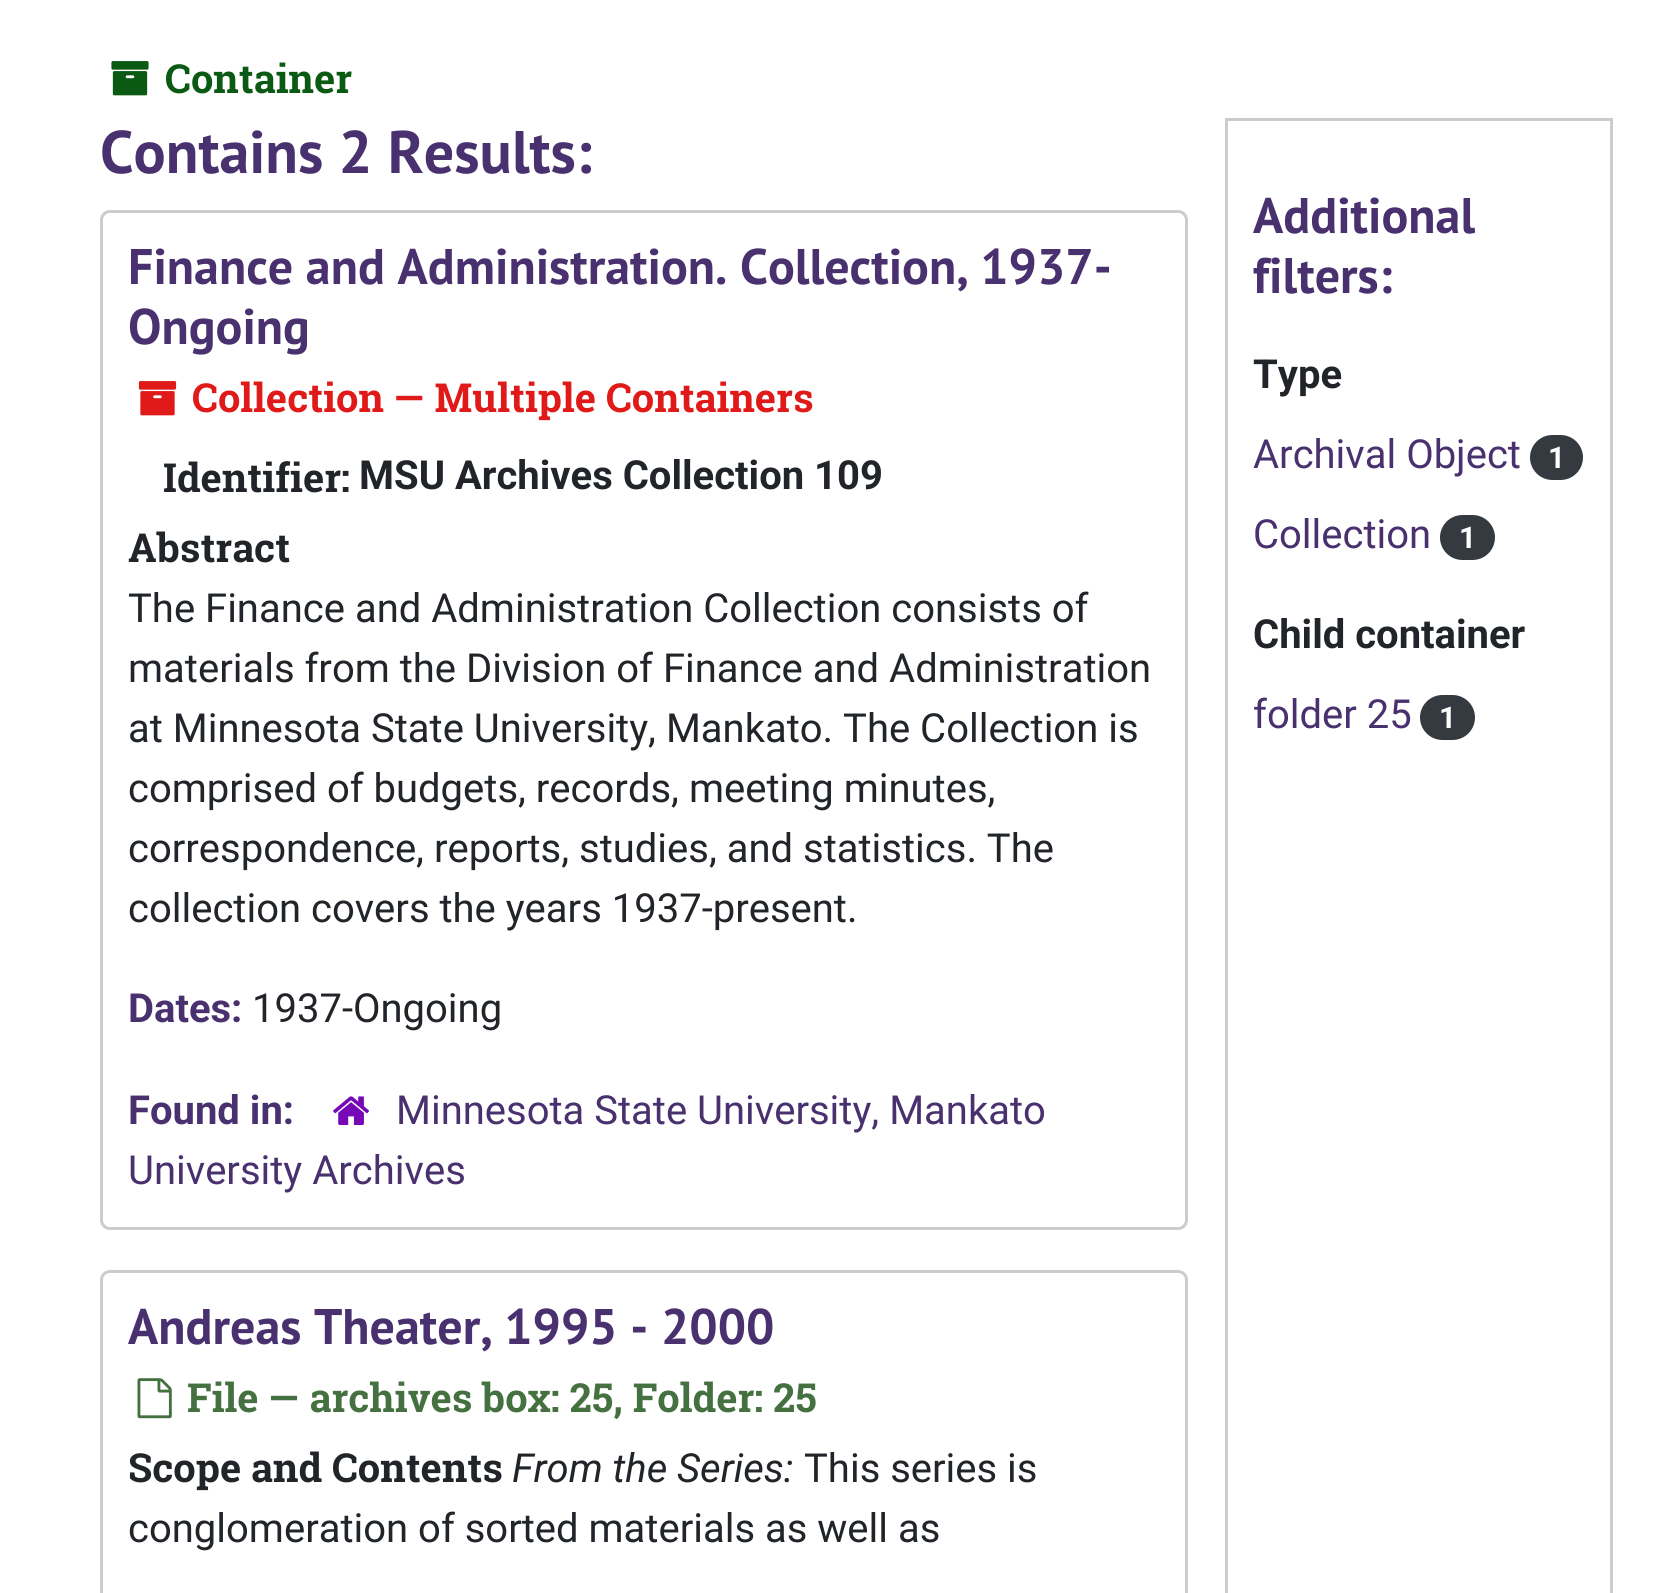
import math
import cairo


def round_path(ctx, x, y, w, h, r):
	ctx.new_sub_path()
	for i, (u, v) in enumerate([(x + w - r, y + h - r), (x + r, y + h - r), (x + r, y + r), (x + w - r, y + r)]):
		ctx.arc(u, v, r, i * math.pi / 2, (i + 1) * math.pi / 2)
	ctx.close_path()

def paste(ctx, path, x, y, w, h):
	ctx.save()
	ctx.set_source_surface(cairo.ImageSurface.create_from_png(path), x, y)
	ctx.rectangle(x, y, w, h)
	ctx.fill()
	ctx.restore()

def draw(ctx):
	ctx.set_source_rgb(1, 1, 1)
	ctx.paint()
	paste(ctx, 'media/1.png', 111, 61, 38, 35)
	ctx.select_font_face('Roboto Slab', cairo.FONT_SLANT_NORMAL, cairo.FONT_WEIGHT_BOLD)
	ctx.set_font_size(40)
	ctx.set_source_rgb(0.043, 0.353, 0.078)
	ctx.move_to(165, 93)
	ctx.show_text('Container')
	ctx.select_font_face('PT Sans', cairo.FONT_SLANT_NORMAL, cairo.FONT_WEIGHT_BOLD)
	ctx.set_font_size(60)
	ctx.set_source_rgb(0.286, 0.188, 0.431)
	ctx.move_to(100, 173)
	ctx.show_text('Contains 2 Results:')
	round_path(ctx, 101.5, 211.5, 1085, 1017, 8.5)
	ctx.set_source_rgb(0.8, 0.8, 0.8)
	ctx.set_line_width(3)
	ctx.stroke()
	ctx.set_font_size(50)
	ctx.set_source_rgb(0.286, 0.188, 0.431)
	ctx.move_to(128, 284)
	ctx.show_text('Finance and Administration. Collection, 1937-')
	ctx.move_to(128, 344)
	ctx.show_text('Ongoing')
	paste(ctx, 'media/2.png', 138, 381, 39, 35)
	ctx.select_font_face('Roboto Slab', cairo.FONT_SLANT_NORMAL, cairo.FONT_WEIGHT_BOLD)
	ctx.set_font_size(40)
	ctx.set_source_rgb(0.878, 0.098, 0.098)
	ctx.move_to(192, 412)
	ctx.show_text('Collection — Multiple Containers')
	ctx.set_source_rgb(0.129, 0.145, 0.161)
	ctx.move_to(163, 492)
	ctx.show_text('Identifier:')
	ctx.select_font_face('Roboto', cairo.FONT_SLANT_NORMAL, cairo.FONT_WEIGHT_BOLD)
	ctx.move_to(359, 489)
	ctx.show_text('MSU Archives Collection 109')
	ctx.select_font_face('Roboto Slab', cairo.FONT_SLANT_NORMAL, cairo.FONT_WEIGHT_BOLD)
	ctx.move_to(128, 562)
	ctx.show_text('Abstract')
	ctx.select_font_face('Roboto')
	for x, y, s in [
		(128, 622, 'The Finance and Administration Collection consists of'),
		(128, 682, 'materials from the Division of Finance and Administration'),
		(128, 742, 'at Minnesota State University, Mankato. The Collection is'),
		(128, 802, 'comprised of budgets, records, meeting minutes,'),
		(128, 862, 'correspondence, reports, studies, and statistics. The'),
		(128, 922, 'collection covers the years 1937-present.'),
	]:
		ctx.move_to(x, y)
		ctx.show_text(s)
	ctx.select_font_face('Roboto', cairo.FONT_SLANT_NORMAL, cairo.FONT_WEIGHT_BOLD)
	ctx.set_source_rgb(0.286, 0.188, 0.431)
	ctx.move_to(128, 1022)
	ctx.show_text('Dates:')
	ctx.select_font_face('Roboto')
	ctx.set_source_rgb(0.129, 0.145, 0.161)
	ctx.move_to(252, 1022)
	ctx.show_text('1937-Ongoing')
	ctx.select_font_face('Roboto', cairo.FONT_SLANT_NORMAL, cairo.FONT_WEIGHT_BOLD)
	ctx.set_source_rgb(0.286, 0.188, 0.431)
	ctx.move_to(128, 1124)
	ctx.show_text('Found in:')
	paste(ctx, 'media/3.png', 333, 1096, 36, 29)
	ctx.select_font_face('Roboto')
	ctx.move_to(396, 1124)
	ctx.show_text('Minnesota State University, Mankato')
	ctx.move_to(128, 1184)
	ctx.show_text('University Archives')
	round_path(ctx, 101.5, 1271.5, 1085, 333, 8.5)
	ctx.set_source_rgb(0.8, 0.8, 0.8)
	ctx.stroke()
	ctx.select_font_face('PT Sans', cairo.FONT_SLANT_NORMAL, cairo.FONT_WEIGHT_BOLD)
	ctx.set_font_size(50)
	ctx.set_source_rgb(0.286, 0.188, 0.431)
	ctx.move_to(128, 1344)
	ctx.show_text('Andreas Theater, 1995 - 2000')
	paste(ctx, 'media/4.png', 137, 1378, 35, 41)
	ctx.select_font_face('Roboto Slab', cairo.FONT_SLANT_NORMAL, cairo.FONT_WEIGHT_BOLD)
	ctx.set_font_size(40)
	ctx.set_source_rgb(0.271, 0.443, 0.255)
	ctx.move_to(187, 1412)
	ctx.show_text('File — archives box: 25, Folder: 25')
	ctx.set_source_rgb(0.129, 0.145, 0.161)
	ctx.move_to(128, 1482)
	ctx.show_text('Scope and Contents')
	ctx.select_font_face('Roboto', cairo.FONT_SLANT_ITALIC)
	ctx.move_to(512, 1482)
	ctx.show_text('From the Series:')
	ctx.select_font_face('Roboto')
	ctx.move_to(804, 1482)
	ctx.show_text('This series is')
	ctx.move_to(128, 1542)
	ctx.show_text('conglomeration of sorted materials as well as')
	ctx.rectangle(1226.5, 119.5, 385, 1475)
	ctx.set_source_rgb(0.8, 0.8, 0.8)
	ctx.stroke()
	ctx.select_font_face('PT Sans', cairo.FONT_SLANT_NORMAL, cairo.FONT_WEIGHT_BOLD)
	ctx.set_font_size(50)
	ctx.set_source_rgb(0.286, 0.188, 0.431)
	ctx.move_to(1253, 233)
	ctx.show_text('Additional')
	ctx.move_to(1253, 293)
	ctx.show_text('filters:')
	ctx.select_font_face('Roboto', cairo.FONT_SLANT_NORMAL, cairo.FONT_WEIGHT_BOLD)
	ctx.set_font_size(40)
	ctx.set_source_rgb(0.129, 0.145, 0.161)
	ctx.move_to(1253, 388)
	ctx.show_text('Type')
	ctx.select_font_face('Roboto')
	ctx.set_source_rgb(0.286, 0.188, 0.431)
	ctx.move_to(1253, 468)
	ctx.show_text('Archival Object')
	ctx.set_source_rgb(0.204, 0.227, 0.251)
	round_path(ctx, 1530, 435, 53, 45, 22.5)
	ctx.fill()
	ctx.select_font_face('Roboto', cairo.FONT_SLANT_NORMAL, cairo.FONT_WEIGHT_BOLD)
	ctx.set_font_size(30)
	ctx.set_source_rgb(1, 1, 1)
	ctx.move_to(1548, 468)
	ctx.show_text('1')
	ctx.select_font_face('Roboto')
	ctx.set_font_size(40)
	ctx.set_source_rgb(0.286, 0.188, 0.431)
	ctx.move_to(1253, 548)
	ctx.show_text('Collection')
	ctx.set_source_rgb(0.204, 0.227, 0.251)
	round_path(ctx, 1440, 515, 55, 45, 22.5)
	ctx.fill()
	ctx.select_font_face('Roboto', cairo.FONT_SLANT_NORMAL, cairo.FONT_WEIGHT_BOLD)
	ctx.set_font_size(30)
	ctx.set_source_rgb(1, 1, 1)
	ctx.move_to(1459, 548)
	ctx.show_text('1')
	ctx.set_font_size(40)
	ctx.set_source_rgb(0.129, 0.145, 0.161)
	ctx.move_to(1253, 648)
	ctx.show_text('Child container')
	ctx.select_font_face('Roboto')
	ctx.set_source_rgb(0.286, 0.188, 0.431)
	ctx.move_to(1253, 728)
	ctx.show_text('folder 25')
	ctx.set_source_rgb(0.204, 0.227, 0.251)
	round_path(ctx, 1420, 695, 55, 45, 22.5)
	ctx.fill()
	ctx.select_font_face('Roboto', cairo.FONT_SLANT_NORMAL, cairo.FONT_WEIGHT_BOLD)
	ctx.set_font_size(30)
	ctx.set_source_rgb(1, 1, 1)
	ctx.move_to(1439, 728)
	ctx.show_text('1')


surface = cairo.ImageSurface(cairo.FORMAT_RGB24, 1674, 1593)
ctx = cairo.Context(surface)
options = cairo.FontOptions()
options.set_hint_metrics(cairo.HINT_METRICS_OFF)
options.set_hint_style(cairo.HINT_STYLE_NONE)
ctx.set_font_options(options)
ctx.set_miter_limit(4)
draw(ctx)
surface.write_to_png('image.png')
